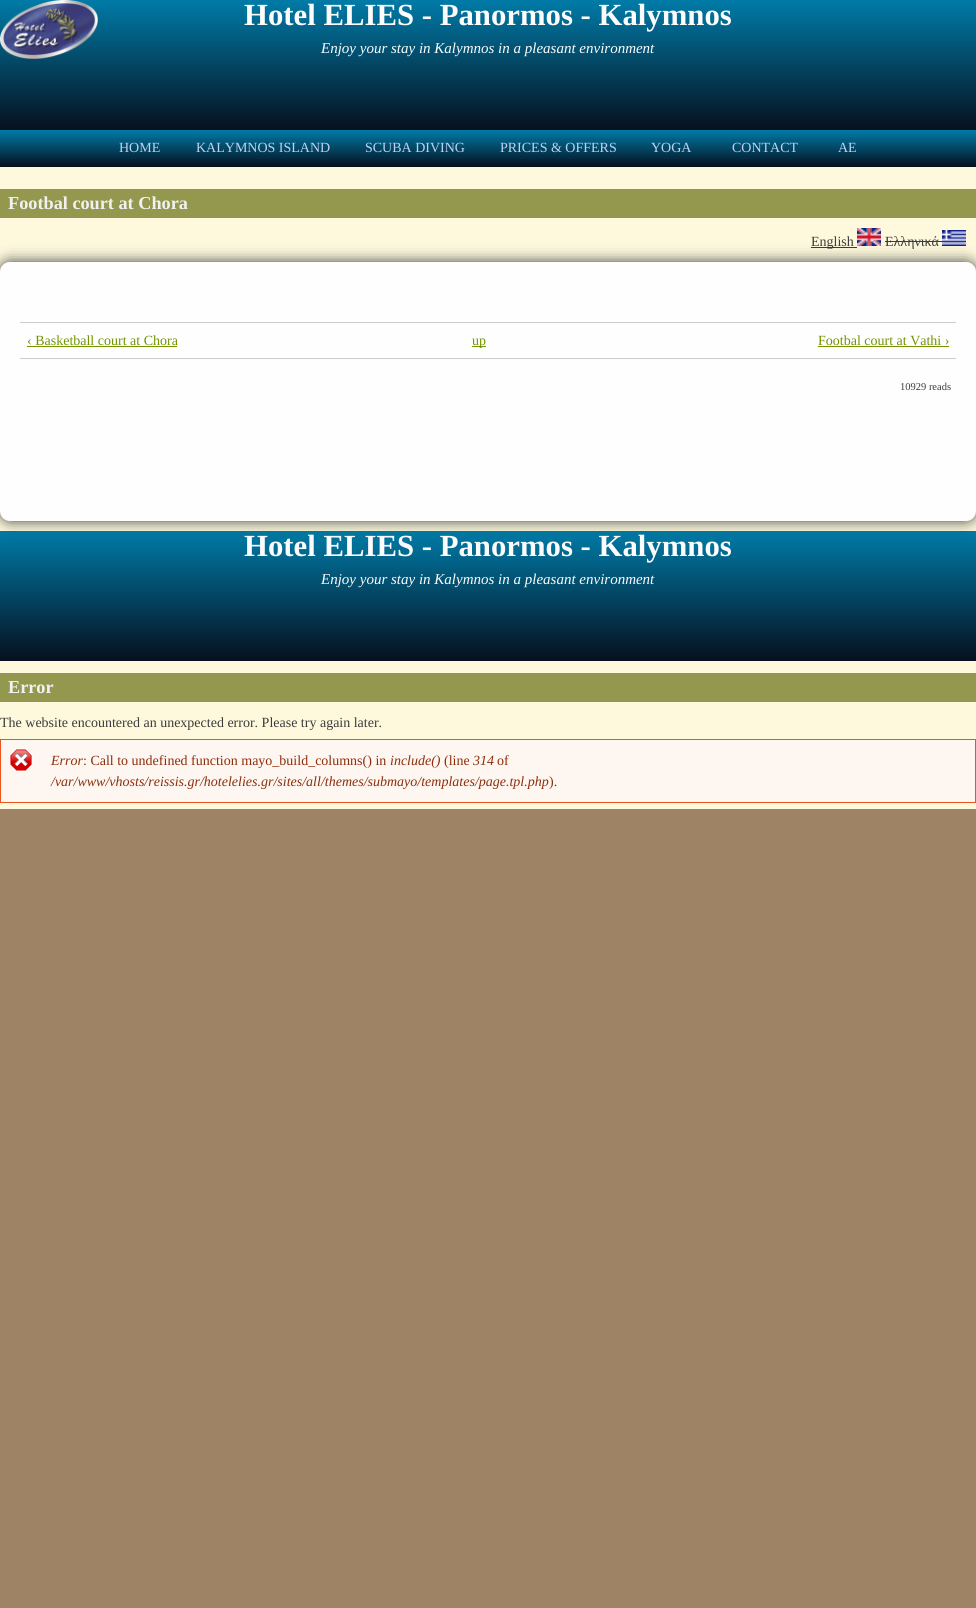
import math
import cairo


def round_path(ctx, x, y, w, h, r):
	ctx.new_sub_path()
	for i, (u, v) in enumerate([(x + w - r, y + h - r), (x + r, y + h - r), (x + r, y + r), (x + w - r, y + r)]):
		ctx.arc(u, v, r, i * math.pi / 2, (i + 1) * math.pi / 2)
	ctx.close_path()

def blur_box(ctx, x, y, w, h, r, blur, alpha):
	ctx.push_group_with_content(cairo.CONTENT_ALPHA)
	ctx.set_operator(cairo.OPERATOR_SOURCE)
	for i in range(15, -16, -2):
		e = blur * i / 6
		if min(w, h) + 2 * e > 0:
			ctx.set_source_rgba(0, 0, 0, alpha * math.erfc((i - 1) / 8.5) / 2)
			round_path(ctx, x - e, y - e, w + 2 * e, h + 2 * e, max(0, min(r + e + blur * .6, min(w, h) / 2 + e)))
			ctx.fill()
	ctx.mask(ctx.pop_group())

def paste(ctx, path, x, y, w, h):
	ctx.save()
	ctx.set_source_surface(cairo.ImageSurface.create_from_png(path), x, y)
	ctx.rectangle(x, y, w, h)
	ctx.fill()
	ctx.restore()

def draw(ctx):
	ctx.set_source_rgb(0.624, 0.514, 0.396)
	ctx.paint()
	ctx.set_source_rgb(0.996, 0.973, 0.867)
	ctx.rectangle(0, 167, 976, 364)
	ctx.fill()
	gradient = cairo.LinearGradient(488, 0, 488, 130)
	gradient.add_color_stop_rgba(0, 0, 0.482, 0.655, 1)
	gradient.add_color_stop_rgba(1, 0.024, 0.063, 0.118, 1)
	ctx.set_source(gradient)
	ctx.rectangle(0, 0, 976, 130)
	ctx.fill()
	paste(ctx, 'media/1.png', 0, 0, 98, 59)
	ctx.select_font_face('Liberation Serif', cairo.FONT_SLANT_NORMAL, cairo.FONT_WEIGHT_BOLD)
	ctx.set_font_size(30.75)
	ctx.set_source_rgb(0.988, 0.988, 0.988)
	ctx.move_to(244, 25)
	ctx.show_text('Hotel ELIES - Panormos - Kalymnos')
	ctx.select_font_face('Liberation Serif', cairo.FONT_SLANT_ITALIC)
	ctx.set_font_size(15)
	ctx.move_to(321, 53)
	ctx.show_text('Enjoy your stay in Kalymnos in a pleasant environment')
	gradient = cairo.LinearGradient(488, 130, 488, 167)
	gradient.add_color_stop_rgba(0, 0, 0.482, 0.655, 1)
	gradient.add_color_stop_rgba(1, 0.024, 0.063, 0.118, 1)
	ctx.set_source(gradient)
	ctx.rectangle(0, 130, 976, 37)
	ctx.fill()
	ctx.select_font_face('Liberation Serif')
	ctx.set_font_size(14)
	ctx.set_source_rgb(0.733, 0.827, 0.945)
	for x, y, s in [
		(119, 152, 'HOME'),
		(196, 152, 'KALYMNOS ISLAND'),
		(365, 152, 'SCUBA DIVING'),
		(500, 152, 'PRICES & OFFERS'),
		(651, 152, 'YOGA'),
		(732, 152, 'CONTACT'),
		(838, 152, 'AE'),
	]:
		ctx.move_to(x, y)
		ctx.show_text(s)
	ctx.set_source_rgb(0.58, 0.592, 0.306)
	ctx.rectangle(0, 189, 976, 29)
	ctx.fill()
	ctx.select_font_face('Liberation Serif', cairo.FONT_SLANT_NORMAL, cairo.FONT_WEIGHT_BOLD)
	ctx.set_font_size(18.25)
	ctx.set_source_rgb(0.945, 0.945, 0.945)
	ctx.move_to(8, 209)
	ctx.show_text('Footbal court at Chora')
	gradient = cairo.LinearGradient(488, 531, 488, 661)
	gradient.add_color_stop_rgba(0, 0, 0.482, 0.655, 1)
	gradient.add_color_stop_rgba(1, 0.024, 0.063, 0.118, 1)
	ctx.set_source(gradient)
	ctx.rectangle(0, 531, 976, 130)
	ctx.fill()
	ctx.set_source_rgb(0.231, 0.231, 0.231)
	blur_box(ctx, 0, 262, 976, 259, 10, 7.5, 1)
	ctx.set_source_rgb(0.231, 0.231, 0.231)
	ctx.rectangle(811, 247, 46, 1)
	ctx.fill()
	ctx.select_font_face('Liberation Serif')
	ctx.set_font_size(14)
	ctx.move_to(811, 246)
	ctx.show_text('English')
	paste(ctx, 'media/2.png', 857, 228, 24, 18)
	ctx.move_to(885, 246)
	ctx.show_text('Ελληνικά')
	ctx.rectangle(885, 241, 57, 1)
	ctx.fill()
	paste(ctx, 'media/3.png', 942, 230, 24, 16)
	ctx.set_source_rgb(0.996, 0.996, 0.996)
	round_path(ctx, 0, 262, 976, 259, 10)
	ctx.fill()
	ctx.set_source_rgb(0.8, 0.8, 0.8)
	ctx.rectangle(20, 322, 936, 1)
	ctx.fill()
	ctx.rectangle(20, 358, 936, 1)
	ctx.fill()
	ctx.set_source_rgb(0.451, 0.58, 0)
	ctx.move_to(27, 345)
	ctx.show_text('‹ Basketball court at Chora')
	ctx.rectangle(27, 346, 150, 1)
	ctx.fill()
	ctx.rectangle(472, 346, 14, 1)
	ctx.fill()
	ctx.move_to(472, 345)
	ctx.show_text('up')
	ctx.move_to(818, 345)
	ctx.show_text('Footbal court at Vathi ›')
	ctx.rectangle(818, 346, 131, 1)
	ctx.fill()
	ctx.set_font_size(10.5)
	ctx.set_source_rgb(0.231, 0.231, 0.231)
	ctx.move_to(900, 390)
	ctx.show_text('10929 reads')
	ctx.set_source_rgb(0.996, 0.973, 0.867)
	ctx.rectangle(0, 661, 976, 148)
	ctx.fill()
	ctx.select_font_face('Liberation Serif', cairo.FONT_SLANT_NORMAL, cairo.FONT_WEIGHT_BOLD)
	ctx.set_font_size(30.75)
	ctx.set_source_rgb(0.988, 0.988, 0.988)
	ctx.move_to(244, 556)
	ctx.show_text('Hotel ELIES - Panormos - Kalymnos')
	ctx.select_font_face('Liberation Serif', cairo.FONT_SLANT_ITALIC)
	ctx.set_font_size(15)
	ctx.move_to(321, 584)
	ctx.show_text('Enjoy your stay in Kalymnos in a pleasant environment')
	ctx.set_source_rgb(0.58, 0.592, 0.306)
	ctx.rectangle(0, 673, 976, 29)
	ctx.fill()
	ctx.select_font_face('Liberation Serif', cairo.FONT_SLANT_NORMAL, cairo.FONT_WEIGHT_BOLD)
	ctx.set_font_size(18.25)
	ctx.set_source_rgb(0.945, 0.945, 0.945)
	ctx.move_to(8, 693)
	ctx.show_text('Error')
	ctx.select_font_face('Liberation Serif')
	ctx.set_font_size(14)
	ctx.set_source_rgb(0.231, 0.231, 0.231)
	ctx.move_to(0, 727)
	ctx.show_text('The website encountered an unexpected error. Please try again later.')
	ctx.set_source_rgb(0.996, 0.961, 0.945)
	ctx.rectangle(1, 740, 974, 62)
	ctx.fill()
	paste(ctx, 'media/4.png', 9, 748, 24, 24)
	ctx.rectangle(0.5, 739.5, 975, 63)
	ctx.set_source_rgb(0.929, 0.329, 0.114)
	ctx.set_line_width(1)
	ctx.stroke()
	ctx.select_font_face('Liberation Serif', cairo.FONT_SLANT_ITALIC)
	ctx.set_source_rgb(0.549, 0.18, 0.043)
	ctx.move_to(51, 765)
	ctx.show_text('Error')
	ctx.select_font_face('Liberation Serif')
	ctx.move_to(83, 765)
	ctx.show_text(': Call to undefined function mayo_build_columns() in')
	ctx.select_font_face('Liberation Serif', cairo.FONT_SLANT_ITALIC)
	ctx.move_to(390, 765)
	ctx.show_text('include()')
	ctx.select_font_face('Liberation Serif')
	ctx.move_to(444, 765)
	ctx.show_text('(line')
	ctx.select_font_face('Liberation Serif', cairo.FONT_SLANT_ITALIC)
	ctx.move_to(473, 765)
	ctx.show_text('314')
	ctx.select_font_face('Liberation Serif')
	ctx.move_to(497, 765)
	ctx.show_text('of')
	ctx.select_font_face('Liberation Serif', cairo.FONT_SLANT_ITALIC)
	ctx.move_to(51, 786)
	ctx.show_text('/var/www/vhosts/reissis.gr/hotelelies.gr/sites/all/themes/submayo/templates/page.tpl.php')
	ctx.select_font_face('Liberation Serif')
	ctx.move_to(549, 786)
	ctx.show_text(').')


surface = cairo.ImageSurface(cairo.FORMAT_RGB24, 976, 1608)
ctx = cairo.Context(surface)
options = cairo.FontOptions()
options.set_hint_metrics(cairo.HINT_METRICS_OFF)
options.set_hint_style(cairo.HINT_STYLE_NONE)
ctx.set_font_options(options)
ctx.set_miter_limit(4)
draw(ctx)
surface.write_to_png('image.png')
